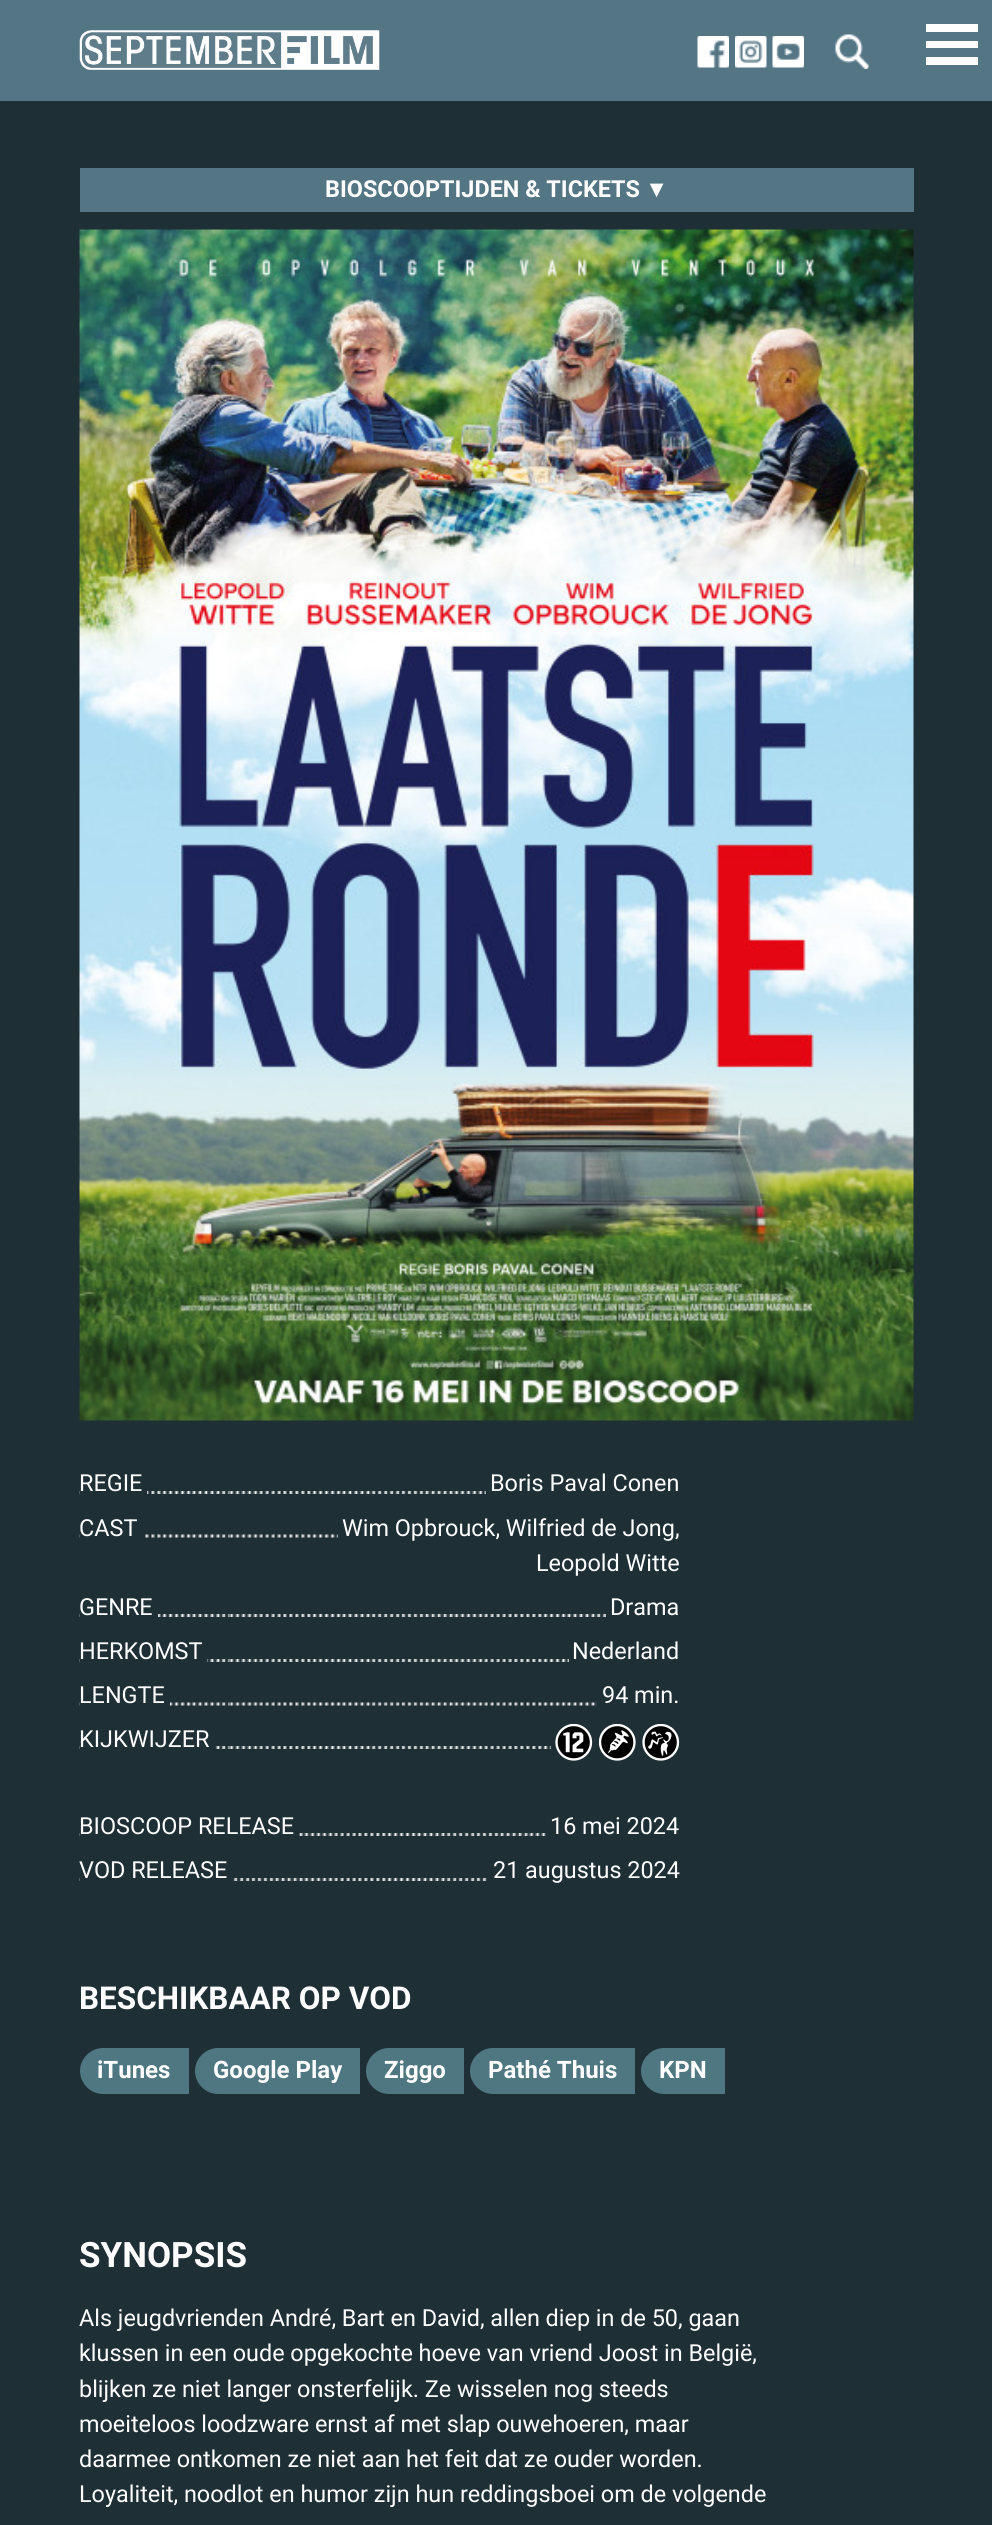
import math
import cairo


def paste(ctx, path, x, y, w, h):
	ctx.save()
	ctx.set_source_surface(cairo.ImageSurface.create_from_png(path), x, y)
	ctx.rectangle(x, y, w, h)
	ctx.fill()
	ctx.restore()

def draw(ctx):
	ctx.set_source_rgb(0.122, 0.184, 0.212)
	ctx.paint()
	ctx.set_source_rgb(0.329, 0.459, 0.518)
	ctx.rectangle(0, 0, 992, 101)
	ctx.fill()
	paste(ctx, 'media/1.png', 79, 30, 301, 40)
	paste(ctx, 'media/2.png', 697, 36, 32, 32)
	paste(ctx, 'media/3.png', 735, 36, 32, 32)
	paste(ctx, 'media/4.png', 772, 36, 32, 32)
	paste(ctx, 'media/5.png', 835, 34, 34, 35)
	ctx.set_source_rgb(0.996, 0.996, 0.996)
	ctx.rectangle(926, 24, 52, 8)
	ctx.rectangle(926, 41, 52, 7)
	ctx.rectangle(926, 57, 52, 8)
	ctx.fill()
	ctx.set_source_rgb(0.329, 0.459, 0.518)
	ctx.rectangle(80, 168, 834, 44)
	ctx.fill()
	ctx.select_font_face('Roboto', cairo.FONT_SLANT_NORMAL, cairo.FONT_WEIGHT_BOLD)
	ctx.set_font_size(23.4)
	ctx.set_source_rgb(0.996, 0.996, 0.996)
	ctx.move_to(325, 197)
	ctx.show_text('BIOSCOOPTIJDEN & TICKETS')
	ctx.select_font_face('Liberation Sans', cairo.FONT_SLANT_NORMAL, cairo.FONT_WEIGHT_BOLD)
	ctx.move_to(645, 197)
	ctx.show_text('▼')
	paste(ctx, 'media/6.png', 79, 229, 835, 1192)
	paste(ctx, 'media/7.png', 79, 1491, 151, 3)
	ctx.set_source_rgb(0.122, 0.184, 0.212)
	ctx.rectangle(80, 1491, 67, 3)
	ctx.fill()
	ctx.select_font_face('Roboto')
	ctx.set_source_rgb(0.996, 0.996, 0.996)
	ctx.move_to(79, 1491)
	ctx.show_text('REGIE')
	paste(ctx, 'media/8.png', 229, 1491, 257, 3)
	ctx.move_to(490, 1491)
	ctx.show_text('Boris Paval Conen')
	paste(ctx, 'media/9.png', 79, 1534, 151, 4)
	ctx.set_source_rgb(0.122, 0.184, 0.212)
	ctx.rectangle(80, 1534, 63, 4)
	ctx.fill()
	ctx.set_source_rgb(0.996, 0.996, 0.996)
	ctx.move_to(79, 1536)
	ctx.show_text('CAST')
	paste(ctx, 'media/10.png', 229, 1534, 109, 4)
	ctx.move_to(342, 1536)
	ctx.show_text('Wim Opbrouck, Wilfried de Jong,')
	ctx.move_to(536, 1571)
	ctx.show_text('Leopold Witte')
	paste(ctx, 'media/7.png', 79, 1614, 151, 3)
	ctx.set_source_rgb(0.122, 0.184, 0.212)
	ctx.rectangle(80, 1614, 78, 3)
	ctx.fill()
	ctx.set_source_rgb(0.996, 0.996, 0.996)
	ctx.move_to(79, 1615)
	ctx.show_text('GENRE')
	paste(ctx, 'media/11.png', 229, 1614, 377, 3)
	ctx.move_to(610, 1615)
	ctx.show_text('Drama')
	paste(ctx, 'media/7.png', 79, 1659, 151, 3)
	ctx.set_source_rgb(0.122, 0.184, 0.212)
	ctx.rectangle(80, 1659, 127, 3)
	ctx.fill()
	ctx.set_source_rgb(0.996, 0.996, 0.996)
	ctx.move_to(79, 1659)
	ctx.show_text('HERKOMST')
	paste(ctx, 'media/12.png', 229, 1659, 340, 3)
	ctx.move_to(572, 1659)
	ctx.show_text('Nederland')
	paste(ctx, 'media/9.png', 79, 1702, 151, 4)
	ctx.set_source_rgb(0.122, 0.184, 0.212)
	ctx.rectangle(80, 1702, 90, 4)
	ctx.fill()
	ctx.set_source_rgb(0.996, 0.996, 0.996)
	ctx.move_to(79, 1703)
	ctx.show_text('LENGTE')
	paste(ctx, 'media/13.png', 229, 1702, 368, 4)
	ctx.move_to(602, 1703)
	ctx.show_text('94 min.')
	paste(ctx, 'media/7.png', 79, 1746, 151, 3)
	ctx.set_source_rgb(0.122, 0.184, 0.212)
	ctx.rectangle(80, 1746, 135, 3)
	ctx.fill()
	ctx.set_source_rgb(0.996, 0.996, 0.996)
	ctx.move_to(79, 1747)
	ctx.show_text('KIJKWIJZER')
	paste(ctx, 'media/14.png', 229, 1746, 322, 3)
	paste(ctx, 'media/15.png', 555, 1724, 38, 37)
	paste(ctx, 'media/16.png', 599, 1724, 37, 37)
	paste(ctx, 'media/17.png', 642, 1724, 38, 37)
	paste(ctx, 'media/18.png', 79, 1833, 225, 3)
	ctx.set_source_rgb(0.122, 0.184, 0.212)
	ctx.rectangle(80, 1833, 219, 3)
	ctx.fill()
	ctx.set_source_rgb(0.996, 0.996, 0.996)
	ctx.move_to(79, 1834)
	ctx.show_text('BIOSCOOP RELEASE')
	paste(ctx, 'media/19.png', 304, 1833, 242, 3)
	ctx.move_to(550, 1834)
	ctx.show_text('16 mei 2024')
	paste(ctx, 'media/18.png', 79, 1878, 225, 3)
	ctx.set_source_rgb(0.122, 0.184, 0.212)
	ctx.rectangle(80, 1878, 152, 3)
	ctx.fill()
	ctx.set_source_rgb(0.996, 0.996, 0.996)
	ctx.move_to(79, 1878)
	ctx.show_text('VOD RELEASE')
	paste(ctx, 'media/20.png', 304, 1878, 183, 3)
	ctx.move_to(493, 1878)
	ctx.show_text('21 augustus 2024')
	ctx.select_font_face('Roboto', cairo.FONT_SLANT_NORMAL, cairo.FONT_WEIGHT_BOLD)
	ctx.set_font_size(31.5)
	ctx.move_to(79, 2009)
	ctx.show_text('BESCHIKBAAR OP VOD')
	ctx.set_source_rgb(0.31, 0.467, 0.506)
	ctx.new_path()
	ctx.move_to(103, 2048)
	ctx.line_to(189, 2048)
	ctx.line_to(189, 2094)
	ctx.line_to(103, 2094)
	ctx.curve_to(90.5, 2094, 80, 2083.5, 80, 2071)
	ctx.curve_to(80, 2058.5, 90.5, 2048, 103, 2048)
	ctx.close_path()
	ctx.fill()
	ctx.set_font_size(24)
	ctx.set_source_rgb(0.996, 0.996, 0.996)
	ctx.move_to(97, 2078)
	ctx.show_text('iTunes')
	ctx.set_source_rgb(0.31, 0.467, 0.506)
	ctx.new_path()
	ctx.move_to(218, 2048)
	ctx.line_to(360, 2048)
	ctx.line_to(360, 2094)
	ctx.line_to(218, 2094)
	ctx.curve_to(205.5, 2094, 195, 2083.5, 195, 2071)
	ctx.curve_to(195, 2058.5, 205.5, 2048, 218, 2048)
	ctx.close_path()
	ctx.fill()
	ctx.set_source_rgb(0.996, 0.996, 0.996)
	ctx.move_to(213, 2078)
	ctx.show_text('Google Play')
	ctx.set_source_rgb(0.31, 0.467, 0.506)
	ctx.new_path()
	ctx.move_to(389, 2048)
	ctx.line_to(464, 2048)
	ctx.line_to(464, 2094)
	ctx.line_to(389, 2094)
	ctx.curve_to(376.5, 2094, 366, 2083.5, 366, 2071)
	ctx.curve_to(366, 2058.5, 376.5, 2048, 389, 2048)
	ctx.close_path()
	ctx.fill()
	ctx.set_source_rgb(0.996, 0.996, 0.996)
	ctx.move_to(384, 2078)
	ctx.show_text('Ziggo')
	ctx.set_source_rgb(0.31, 0.467, 0.506)
	ctx.new_path()
	ctx.move_to(493, 2048)
	ctx.line_to(635, 2048)
	ctx.line_to(635, 2094)
	ctx.line_to(493, 2094)
	ctx.curve_to(480.5, 2094, 470, 2083.5, 470, 2071)
	ctx.curve_to(470, 2058.5, 480.5, 2048, 493, 2048)
	ctx.close_path()
	ctx.fill()
	ctx.set_source_rgb(0.996, 0.996, 0.996)
	ctx.move_to(488, 2078)
	ctx.show_text('Pathé Thuis')
	ctx.set_source_rgb(0.31, 0.467, 0.506)
	ctx.new_path()
	ctx.move_to(664, 2048)
	ctx.line_to(725, 2048)
	ctx.line_to(725, 2094)
	ctx.line_to(664, 2094)
	ctx.curve_to(651.5, 2094, 641, 2083.5, 641, 2071)
	ctx.curve_to(641, 2058.5, 651.5, 2048, 664, 2048)
	ctx.close_path()
	ctx.fill()
	ctx.set_source_rgb(0.996, 0.996, 0.996)
	ctx.move_to(659, 2078)
	ctx.show_text('KPN')
	ctx.set_font_size(35)
	ctx.move_to(79, 2267)
	ctx.show_text('SYNOPSIS')
	ctx.select_font_face('Roboto')
	ctx.set_font_size(23.4)
	for x, y, s in [
		(79, 2326, 'Als jeugdvrienden André, Bart en David, allen diep in de 50, gaan'),
		(79, 2361, 'klussen in een oude opgekochte hoeve van vriend Joost in België,'),
		(79, 2397, 'blijken ze niet langer onsterfelijk. Ze wisselen nog steeds'),
		(79, 2432, 'moeiteloos loodzware ernst af met slap ouwehoeren, maar'),
		(79, 2467, 'daarmee ontkomen ze niet aan het feit dat ze ouder worden.'),
		(79, 2502, 'Loyaliteit, noodlot en humor zijn hun reddingsboei om de volgende'),
	]:
		ctx.move_to(x, y)
		ctx.show_text(s)


surface = cairo.ImageSurface(cairo.FORMAT_RGB24, 992, 2525)
ctx = cairo.Context(surface)
options = cairo.FontOptions()
options.set_hint_metrics(cairo.HINT_METRICS_OFF)
options.set_hint_style(cairo.HINT_STYLE_NONE)
ctx.set_font_options(options)
ctx.set_miter_limit(4)
draw(ctx)
surface.write_to_png('image.png')
